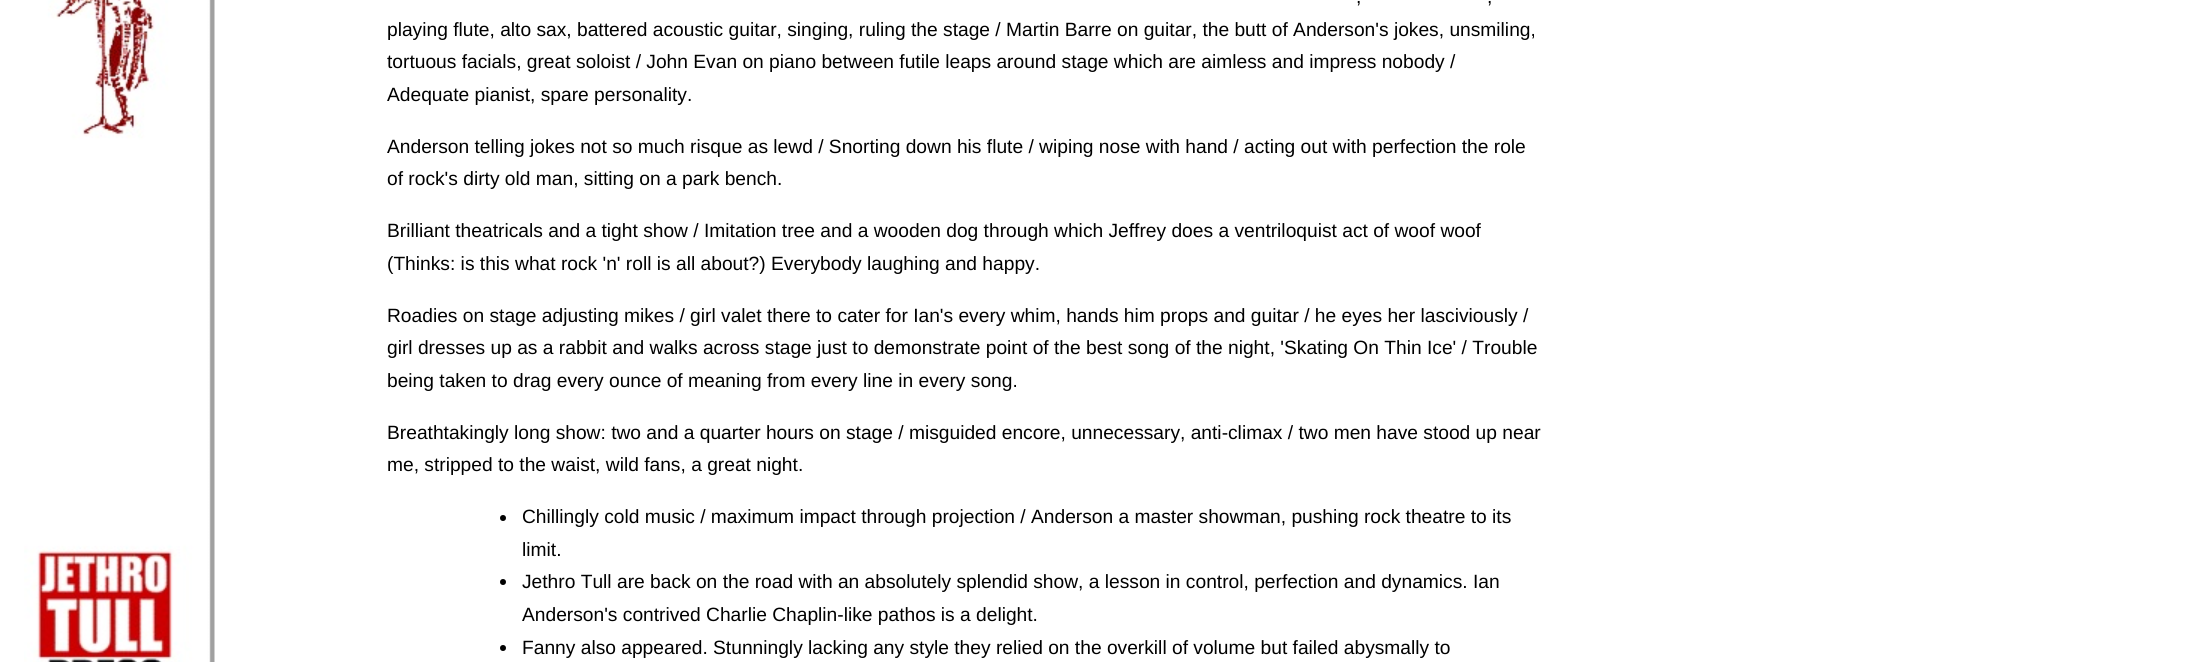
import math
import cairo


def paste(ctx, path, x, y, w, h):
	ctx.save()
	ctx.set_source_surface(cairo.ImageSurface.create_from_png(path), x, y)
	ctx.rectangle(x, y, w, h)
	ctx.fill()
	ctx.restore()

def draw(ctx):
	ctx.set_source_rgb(1, 1, 1)
	ctx.paint()
	paste(ctx, 'media/1.png', 24, 0, 191, 662)
	ctx.select_font_face('Liberation Sans')
	ctx.set_font_size(19.2)
	ctx.set_source_rgb(0, 0, 0)
	for x, y, s in [
		(1356, 3, ','),
		(1487, 3, ','),
		(387, 36, 'playing flute, alto sax, battered acoustic guitar, singing, ruling the stage / Martin Barre on guitar, the butt of Anderson\'s jokes, unsmiling,'),
		(387, 68, 'tortuous facials, great soloist / John Evan on piano between futile leaps around stage which are aimless and impress nobody /'),
		(387, 101, 'Adequate pianist, spare personality.'),
		(387, 153, 'Anderson telling jokes not so much risque as lewd / Snorting down his flute / wiping nose with hand / acting out with perfection the role'),
		(387, 185, 'of rock\'s dirty old man, sitting on a park bench.'),
		(387, 237, 'Brilliant theatricals and a tight show / Imitation tree and a wooden dog through which Jeffrey does a ventriloquist act of woof woof'),
		(387, 270, '(Thinks: is this what rock \'n\' roll is all about?) Everybody laughing and happy.'),
		(387, 322, 'Roadies on stage adjusting mikes / girl valet there to cater for Ian\'s every whim, hands him props and guitar / he eyes her lasciviously /'),
		(387, 354, 'girl dresses up as a rabbit and walks across stage just to demonstrate point of the best song of the night, \'Skating On Thin Ice\' / Trouble'),
		(387, 387, 'being taken to drag every ounce of meaning from every line in every song.'),
		(387, 439, 'Breathtakingly long show: two and a quarter hours on stage / misguided encore, unnecessary, anti-climax / two men have stood up near'),
		(387, 471, 'me, stripped to the waist, wild fans, a great night.'),
	]:
		ctx.move_to(x, y)
		ctx.show_text(s)
	ctx.new_path()
	ctx.arc(503, 518, 3, 0, 2 * math.pi)
	ctx.fill()
	ctx.move_to(522, 523)
	ctx.show_text('Chillingly cold music / maximum impact through projection / Anderson a master showman, pushing rock theatre to its')
	ctx.move_to(522, 556)
	ctx.show_text('limit.')
	ctx.new_path()
	ctx.arc(503, 582, 3, 0, 2 * math.pi)
	ctx.fill()
	ctx.move_to(522, 588)
	ctx.show_text('Jethro Tull are back on the road with an absolutely splendid show, a lesson in control, perfection and dynamics. Ian')
	ctx.move_to(522, 621)
	ctx.show_text('Anderson\'s contrived Charlie Chaplin-like pathos is a delight.')
	ctx.new_path()
	ctx.arc(503, 648, 3, 0, 2 * math.pi)
	ctx.fill()
	ctx.move_to(522, 654)
	ctx.show_text('Fanny also appeared. Stunningly lacking any style they relied on the overkill of volume but failed abysmally to')


surface = cairo.ImageSurface(cairo.FORMAT_RGB24, 2207, 662)
ctx = cairo.Context(surface)
options = cairo.FontOptions()
options.set_hint_metrics(cairo.HINT_METRICS_OFF)
options.set_hint_style(cairo.HINT_STYLE_NONE)
ctx.set_font_options(options)
ctx.set_miter_limit(4)
draw(ctx)
surface.write_to_png('image.png')
